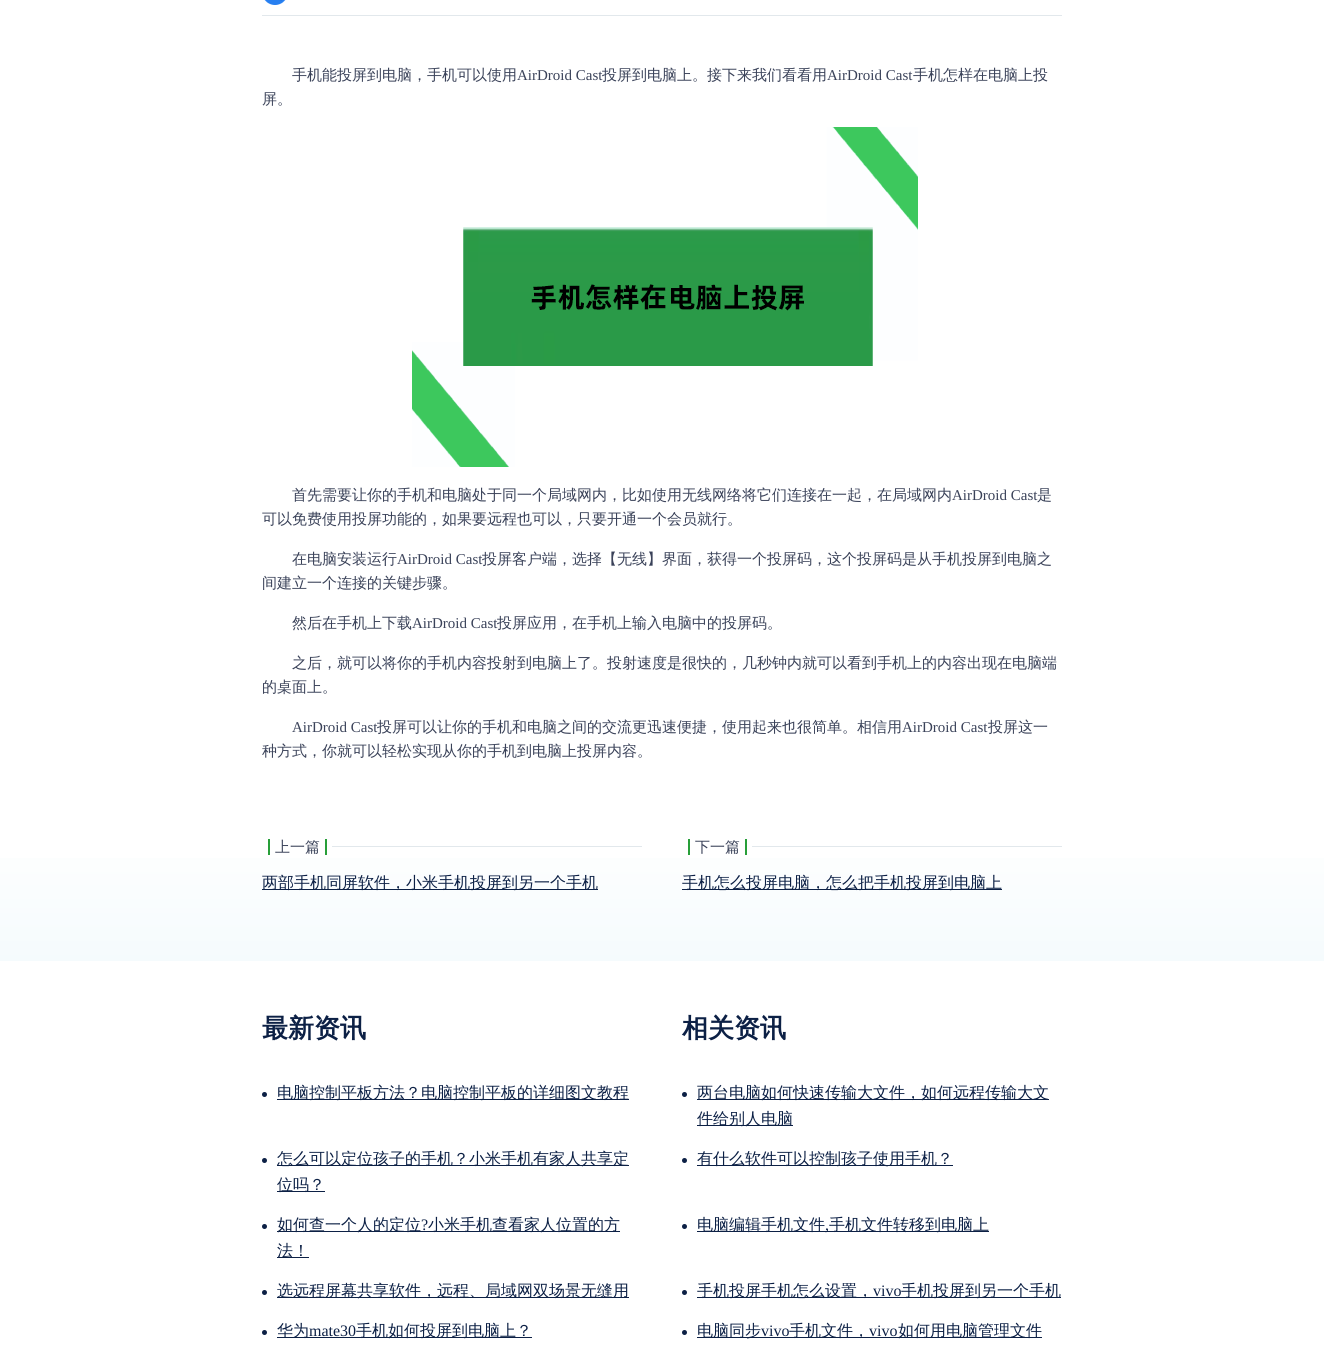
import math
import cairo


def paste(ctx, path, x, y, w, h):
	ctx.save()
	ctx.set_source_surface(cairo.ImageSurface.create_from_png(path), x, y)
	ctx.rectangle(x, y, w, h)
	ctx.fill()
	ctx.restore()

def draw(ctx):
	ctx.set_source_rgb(1, 1, 1)
	ctx.paint()
	ctx.set_source_rgb(0.886, 0.91, 0.925)
	ctx.rectangle(262, 15, 800, 1)
	ctx.fill()
	paste(ctx, 'media/1.png', 264, 0, 22, 5)
	ctx.select_font_face('WenQuanYi Zen Hei Medium')
	ctx.set_font_size(15)
	ctx.set_source_rgb(0.227, 0.259, 0.349)
	ctx.move_to(292, 80)
	ctx.show_text('手机能投屏到电脑，手机可以使用')
	ctx.select_font_face('Liberation Serif')
	ctx.move_to(517, 80)
	ctx.show_text('AirDroid Cast')
	ctx.select_font_face('WenQuanYi Zen Hei Medium')
	ctx.move_to(602, 80)
	ctx.show_text('投屏到电脑上。接下来我们看看用')
	ctx.select_font_face('Liberation Serif')
	ctx.move_to(827, 80)
	ctx.show_text('AirDroid Cast')
	ctx.select_font_face('WenQuanYi Zen Hei Medium')
	ctx.move_to(913, 80)
	ctx.show_text('手机怎样在电脑上投')
	ctx.move_to(262, 104)
	ctx.show_text('屏。')
	paste(ctx, 'media/2.png', 412, 127, 506, 340)
	ctx.move_to(292, 500)
	ctx.show_text('首先需要让你的手机和电脑处于同一个局域网内，比如使用无线网络将它们连接在一起，在局域网内')
	ctx.select_font_face('Liberation Serif')
	ctx.move_to(952, 500)
	ctx.show_text('AirDroid Cast')
	ctx.select_font_face('WenQuanYi Zen Hei Medium')
	for x, y, s in [
		(1037, 500, '是'),
		(262, 524, '可以免费使用投屏功能的，如果要远程也可以，只要开通一个会员就行。'),
		(292, 564, '在电脑安装运行'),
	]:
		ctx.move_to(x, y)
		ctx.show_text(s)
	ctx.select_font_face('Liberation Serif')
	ctx.move_to(397, 564)
	ctx.show_text('AirDroid Cast')
	ctx.select_font_face('WenQuanYi Zen Hei Medium')
	for x, y, s in [
		(482, 564, '投屏客户端，选择【无线】界面，获得一个投屏码，这个投屏码是从手机投屏到电脑之'),
		(262, 588, '间建立一个连接的关键步骤。'),
		(292, 628, '然后在手机上下载'),
	]:
		ctx.move_to(x, y)
		ctx.show_text(s)
	ctx.select_font_face('Liberation Serif')
	ctx.move_to(412, 628)
	ctx.show_text('AirDroid Cast')
	ctx.select_font_face('WenQuanYi Zen Hei Medium')
	for x, y, s in [
		(497, 628, '投屏应用，在手机上输入电脑中的投屏码。'),
		(292, 668, '之后，就可以将你的手机内容投射到电脑上了。投射速度是很快的，几秒钟内就可以看到手机上的内容出现在电脑端'),
		(262, 692, '的桌面上。'),
	]:
		ctx.move_to(x, y)
		ctx.show_text(s)
	ctx.select_font_face('Liberation Serif')
	ctx.move_to(292, 732)
	ctx.show_text('AirDroid Cast')
	ctx.select_font_face('WenQuanYi Zen Hei Medium')
	ctx.move_to(377, 732)
	ctx.show_text('投屏可以让你的手机和电脑之间的交流更迅速便捷，使用起来也很简单。相信用')
	ctx.select_font_face('Liberation Serif')
	ctx.move_to(902, 732)
	ctx.show_text('AirDroid Cast')
	ctx.select_font_face('WenQuanYi Zen Hei Medium')
	ctx.move_to(988, 732)
	ctx.show_text('投屏这一')
	ctx.move_to(262, 756)
	ctx.show_text('种方式，你就可以轻松实现从你的手机到电脑上投屏内容。')
	gradient = cairo.LinearGradient(662, 823, 662, 961)
	gradient.add_color_stop_rgba(0, 1, 1, 1, 1)
	gradient.add_color_stop_rgba(1, 0.961, 0.984, 0.992, 1)
	ctx.set_source(gradient)
	ctx.rectangle(0, 858, 1324, 103)
	ctx.fill()
	ctx.set_source_rgb(0.157, 0.624, 0.224)
	ctx.rectangle(268, 839, 2, 16)
	ctx.fill()
	ctx.set_source_rgb(0.227, 0.259, 0.349)
	ctx.move_to(275, 852)
	ctx.show_text('上一篇')
	ctx.set_source_rgb(0.157, 0.624, 0.224)
	ctx.rectangle(325, 839, 2, 16)
	ctx.fill()
	ctx.set_source_rgb(0.886, 0.91, 0.925)
	ctx.rectangle(332, 846, 310, 1)
	ctx.fill()
	ctx.set_source_rgb(0.047, 0.125, 0.271)
	ctx.rectangle(262, 889, 336, 1)
	ctx.fill()
	ctx.set_font_size(16)
	ctx.move_to(262, 888)
	ctx.show_text('两部手机同屏软件，小米手机投屏到另一个手机')
	ctx.set_source_rgb(0.157, 0.624, 0.224)
	ctx.rectangle(688, 839, 2, 16)
	ctx.fill()
	ctx.set_font_size(15)
	ctx.set_source_rgb(0.227, 0.259, 0.349)
	ctx.move_to(695, 852)
	ctx.show_text('下一篇')
	ctx.set_source_rgb(0.157, 0.624, 0.224)
	ctx.rectangle(745, 839, 2, 16)
	ctx.fill()
	ctx.set_source_rgb(0.886, 0.91, 0.925)
	ctx.rectangle(752, 846, 310, 1)
	ctx.fill()
	ctx.set_source_rgb(0.047, 0.125, 0.271)
	ctx.rectangle(682, 889, 320, 1)
	ctx.fill()
	ctx.set_font_size(16)
	ctx.move_to(682, 888)
	ctx.show_text('手机怎么投屏电脑，怎么把手机投屏到电脑上')
	ctx.select_font_face('WenQuanYi Zen Hei', cairo.FONT_SLANT_NORMAL, cairo.FONT_WEIGHT_BOLD)
	ctx.set_font_size(26)
	ctx.move_to(262, 1037)
	ctx.show_text('最新资讯')
	ctx.move_to(682, 1037)
	ctx.show_text('相关资讯')
	ctx.new_path()
	ctx.arc(264.5, 1094.5, 2.5, 0, 2 * math.pi)
	ctx.fill()
	ctx.rectangle(277, 1099, 352, 1)
	ctx.fill()
	ctx.select_font_face('WenQuanYi Zen Hei Medium')
	ctx.set_font_size(16)
	ctx.move_to(277, 1098)
	ctx.show_text('电脑控制平板方法？电脑控制平板的详细图文教程')
	ctx.new_path()
	ctx.arc(684.5, 1094.5, 2.5, 0, 2 * math.pi)
	ctx.fill()
	ctx.rectangle(697, 1099, 352, 1)
	ctx.fill()
	ctx.move_to(697, 1098)
	ctx.show_text('两台电脑如何快速传输大文件，如何远程传输大文')
	ctx.rectangle(697, 1125, 96, 1)
	ctx.fill()
	ctx.move_to(697, 1124)
	ctx.show_text('件给别人电脑')
	ctx.new_path()
	ctx.arc(264.5, 1160.5, 2.5, 0, 2 * math.pi)
	ctx.fill()
	ctx.rectangle(277, 1165, 352, 1)
	ctx.fill()
	ctx.move_to(277, 1164)
	ctx.show_text('怎么可以定位孩子的手机？小米手机有家人共享定')
	ctx.rectangle(277, 1191, 48, 1)
	ctx.fill()
	ctx.move_to(277, 1190)
	ctx.show_text('位吗？')
	ctx.new_path()
	ctx.arc(684.5, 1160.5, 2.5, 0, 2 * math.pi)
	ctx.fill()
	ctx.rectangle(697, 1165, 256, 1)
	ctx.fill()
	ctx.move_to(697, 1164)
	ctx.show_text('有什么软件可以控制孩子使用手机？')
	ctx.new_path()
	ctx.arc(264.5, 1226.5, 2.5, 0, 2 * math.pi)
	ctx.fill()
	ctx.rectangle(277, 1231, 343, 1)
	ctx.fill()
	ctx.move_to(277, 1230)
	ctx.show_text('如何查一个人的定位')
	ctx.select_font_face('Liberation Serif')
	ctx.move_to(421, 1230)
	ctx.show_text('?')
	ctx.select_font_face('WenQuanYi Zen Hei Medium')
	ctx.move_to(428, 1230)
	ctx.show_text('小米手机查看家人位置的方')
	ctx.rectangle(277, 1257, 32, 1)
	ctx.fill()
	ctx.move_to(277, 1256)
	ctx.show_text('法！')
	ctx.new_path()
	ctx.arc(684.5, 1226.5, 2.5, 0, 2 * math.pi)
	ctx.fill()
	ctx.rectangle(697, 1231, 292, 1)
	ctx.fill()
	ctx.move_to(697, 1230)
	ctx.show_text('电脑编辑手机文件')
	ctx.move_to(829, 1230)
	ctx.show_text('手机文件转移到电脑上')
	ctx.select_font_face('Liberation Serif')
	ctx.move_to(825, 1230)
	ctx.show_text(',')
	ctx.new_path()
	ctx.arc(264.5, 1292.5, 2.5, 0, 2 * math.pi)
	ctx.fill()
	ctx.rectangle(277, 1297, 352, 1)
	ctx.fill()
	ctx.select_font_face('WenQuanYi Zen Hei Medium')
	ctx.move_to(277, 1296)
	ctx.show_text('选远程屏幕共享软件，远程、局域网双场景无缝用')
	ctx.new_path()
	ctx.arc(684.5, 1292.5, 2.5, 0, 2 * math.pi)
	ctx.fill()
	ctx.rectangle(697, 1297, 364, 1)
	ctx.fill()
	ctx.move_to(697, 1296)
	ctx.show_text('手机投屏手机怎么设置，')
	ctx.select_font_face('Liberation Serif')
	ctx.move_to(873, 1296)
	ctx.show_text('vivo')
	ctx.select_font_face('WenQuanYi Zen Hei Medium')
	ctx.move_to(901, 1296)
	ctx.show_text('手机投屏到另一个手机')
	ctx.new_path()
	ctx.arc(264.5, 1332.5, 2.5, 0, 2 * math.pi)
	ctx.fill()
	ctx.rectangle(277, 1337, 255, 1)
	ctx.fill()
	ctx.move_to(277, 1336)
	ctx.show_text('华为')
	ctx.select_font_face('Liberation Serif')
	ctx.move_to(309, 1336)
	ctx.show_text('mate30')
	ctx.select_font_face('WenQuanYi Zen Hei Medium')
	ctx.move_to(356, 1336)
	ctx.show_text('手机如何投屏到电脑上？')
	ctx.new_path()
	ctx.arc(684.5, 1332.5, 2.5, 0, 2 * math.pi)
	ctx.fill()
	ctx.rectangle(697, 1337, 345, 1)
	ctx.fill()
	ctx.move_to(697, 1336)
	ctx.show_text('电脑同步')
	ctx.select_font_face('Liberation Serif')
	ctx.move_to(761, 1336)
	ctx.show_text('vivo')
	ctx.select_font_face('WenQuanYi Zen Hei Medium')
	ctx.move_to(789, 1336)
	ctx.show_text('手机文件，')
	ctx.select_font_face('Liberation Serif')
	ctx.move_to(869, 1336)
	ctx.show_text('vivo')
	ctx.select_font_face('WenQuanYi Zen Hei Medium')
	ctx.move_to(898, 1336)
	ctx.show_text('如何用电脑管理文件')


surface = cairo.ImageSurface(cairo.FORMAT_RGB24, 1324, 1367)
ctx = cairo.Context(surface)
options = cairo.FontOptions()
options.set_hint_metrics(cairo.HINT_METRICS_OFF)
options.set_hint_style(cairo.HINT_STYLE_NONE)
ctx.set_font_options(options)
ctx.set_miter_limit(4)
draw(ctx)
surface.write_to_png('image.png')
